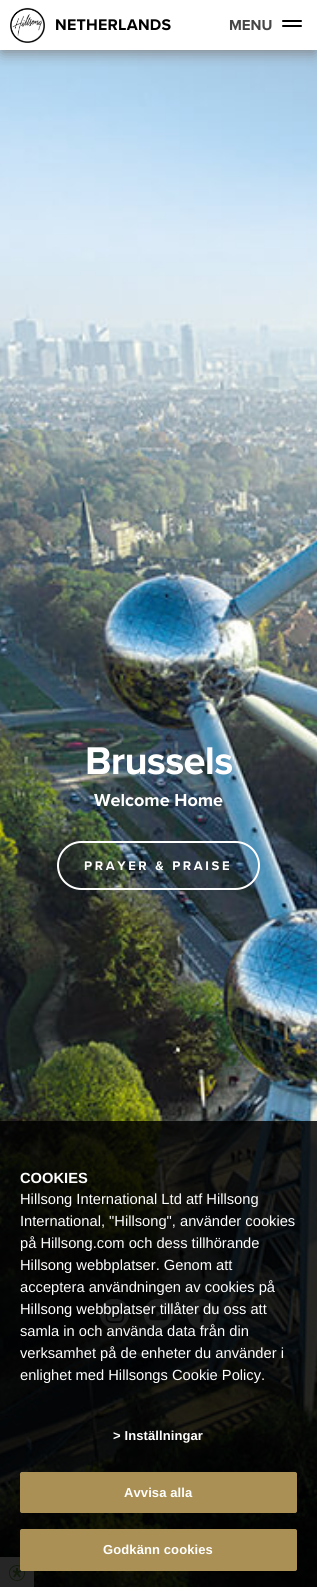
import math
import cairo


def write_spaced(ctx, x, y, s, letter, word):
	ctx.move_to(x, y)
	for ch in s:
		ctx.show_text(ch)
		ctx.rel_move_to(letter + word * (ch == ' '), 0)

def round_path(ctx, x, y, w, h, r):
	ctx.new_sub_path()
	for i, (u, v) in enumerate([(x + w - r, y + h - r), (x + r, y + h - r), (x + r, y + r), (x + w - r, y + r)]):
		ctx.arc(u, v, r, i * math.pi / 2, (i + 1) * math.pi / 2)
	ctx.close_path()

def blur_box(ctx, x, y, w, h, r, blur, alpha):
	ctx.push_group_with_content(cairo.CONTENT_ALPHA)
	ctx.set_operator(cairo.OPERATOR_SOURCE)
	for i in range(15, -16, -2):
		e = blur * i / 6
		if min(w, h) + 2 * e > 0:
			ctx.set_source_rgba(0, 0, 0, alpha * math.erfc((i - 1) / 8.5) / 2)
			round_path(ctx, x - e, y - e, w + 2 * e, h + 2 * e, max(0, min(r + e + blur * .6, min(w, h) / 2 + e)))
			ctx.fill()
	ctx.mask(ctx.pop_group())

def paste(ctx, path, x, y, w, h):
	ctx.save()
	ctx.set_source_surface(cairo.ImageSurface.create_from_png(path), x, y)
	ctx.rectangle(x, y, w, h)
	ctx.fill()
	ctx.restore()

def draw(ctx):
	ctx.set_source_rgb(1, 1, 1)
	ctx.paint()
	paste(ctx, 'media/2.png', 0, 50, 317, 1537)
	ctx.save()
	ctx.rectangle(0, 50, 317, 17)
	ctx.clip()
	ctx.set_source_rgb(0.502, 0.502, 0.502)
	blur_box(ctx, 2, 6, 313, 46, 0, 7.5, 1)
	ctx.restore()
	paste(ctx, 'media/1.png', 10, 7, 35, 36)
	ctx.select_font_face('Proxima Nova', cairo.FONT_SLANT_NORMAL, cairo.FONT_WEIGHT_BOLD)
	ctx.set_font_size(16)
	ctx.set_source_rgb(0, 0, 0)
	write_spaced(ctx, 55, 30, 'NETHERLANDS', 0.25, 0)
	ctx.set_font_size(15)
	ctx.set_source_rgb(0.275, 0.275, 0.275)
	ctx.move_to(229, 30)
	ctx.show_text('MENU')
	ctx.set_source_rgb(0, 0, 0)
	round_path(ctx, 282, 20, 20, 2, 1)
	ctx.fill()
	round_path(ctx, 282, 25, 20, 2, 1)
	ctx.fill()
	ctx.set_font_size(40)
	ctx.set_source_rgb(1, 1, 1)
	write_spaced(ctx, 85, 774, 'Brussels', -0.75, 0)
	ctx.set_font_size(18)
	ctx.move_to(94, 806)
	ctx.show_text('Welcome Home')
	round_path(ctx, 58, 842, 201, 47, 23.5)
	ctx.stroke()
	ctx.set_font_size(13)
	write_spaced(ctx, 84, 870, 'PRAYER & PRAISE', 2.6, 0)
	paste(ctx, 'media/3.png', 100, 1299, 30, 30)
	paste(ctx, 'media/4.png', 144, 1299, 30, 30)
	paste(ctx, 'media/5.png', 187, 1299, 30, 30)
	ctx.rectangle(0, 1557, 34, 30)
	ctx.fill()
	paste(ctx, 'media/6.png', 9, 1565, 16, 16)
	ctx.save()
	ctx.rectangle(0, 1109, 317, 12)
	ctx.clip()
	ctx.set_source_rgb(0, 0, 0)
	blur_box(ctx, 0, 1121, 317, 466, 0, 9, 0.2)
	ctx.restore()
	ctx.set_source_rgba(0, 0, 0, 0.85)
	ctx.rectangle(0, 1121, 317, 466)
	ctx.fill()
	ctx.select_font_face('Liberation Sans', cairo.FONT_SLANT_NORMAL, cairo.FONT_WEIGHT_BOLD)
	ctx.set_font_size(14.7)
	ctx.set_source_rgb(1, 1, 1)
	ctx.move_to(20, 1183)
	ctx.show_text('COOKIES')
	ctx.select_font_face('Liberation Sans')
	for x, y, s in [
		(20, 1204, 'Hillsong International Ltd atf Hillsong'),
		(20, 1226, 'International, "Hillsong", använder cookies'),
		(20, 1248, 'på Hillsong.com och dess tillhörande'),
		(20, 1270, 'Hillsong webbplatser. Genom att'),
		(20, 1292, 'acceptera användningen av cookies på'),
		(20, 1314, 'Hillsong webbplatser tillåter du oss att'),
		(20, 1336, 'samla in och använda data från din'),
		(20, 1358, 'verksamhet på de enheter du använder i'),
		(20, 1380, 'enlighet med Hillsongs Cookie Policy.'),
	]:
		ctx.move_to(x, y)
		ctx.show_text(s)
	ctx.select_font_face('Liberation Sans', cairo.FONT_SLANT_NORMAL, cairo.FONT_WEIGHT_BOLD)
	ctx.set_font_size(13)
	write_spaced(ctx, 113, 1440, '> Inställningar', 0.1, 0)
	ctx.set_source_rgb(0.667, 0.565, 0.333)
	round_path(ctx, 20.5, 1472.5, 276, 40, 1.5)
	ctx.fill_preserve()
	ctx.set_line_width(1)
	ctx.stroke()
	ctx.set_source_rgb(1, 1, 1)
	write_spaced(ctx, 124, 1497, 'Avvisa alla', 0.1, 0)
	ctx.set_source_rgb(0.667, 0.565, 0.333)
	round_path(ctx, 20.5, 1529.5, 276, 41, 1.5)
	ctx.fill_preserve()
	ctx.stroke()
	ctx.set_source_rgb(1, 1, 1)
	write_spaced(ctx, 103, 1554, 'Godkänn cookies', 0.1, 0)


surface = cairo.ImageSurface(cairo.FORMAT_RGB24, 317, 1587)
ctx = cairo.Context(surface)
options = cairo.FontOptions()
options.set_hint_metrics(cairo.HINT_METRICS_OFF)
options.set_hint_style(cairo.HINT_STYLE_NONE)
ctx.set_font_options(options)
ctx.set_miter_limit(4)
draw(ctx)
surface.write_to_png('image.png')
